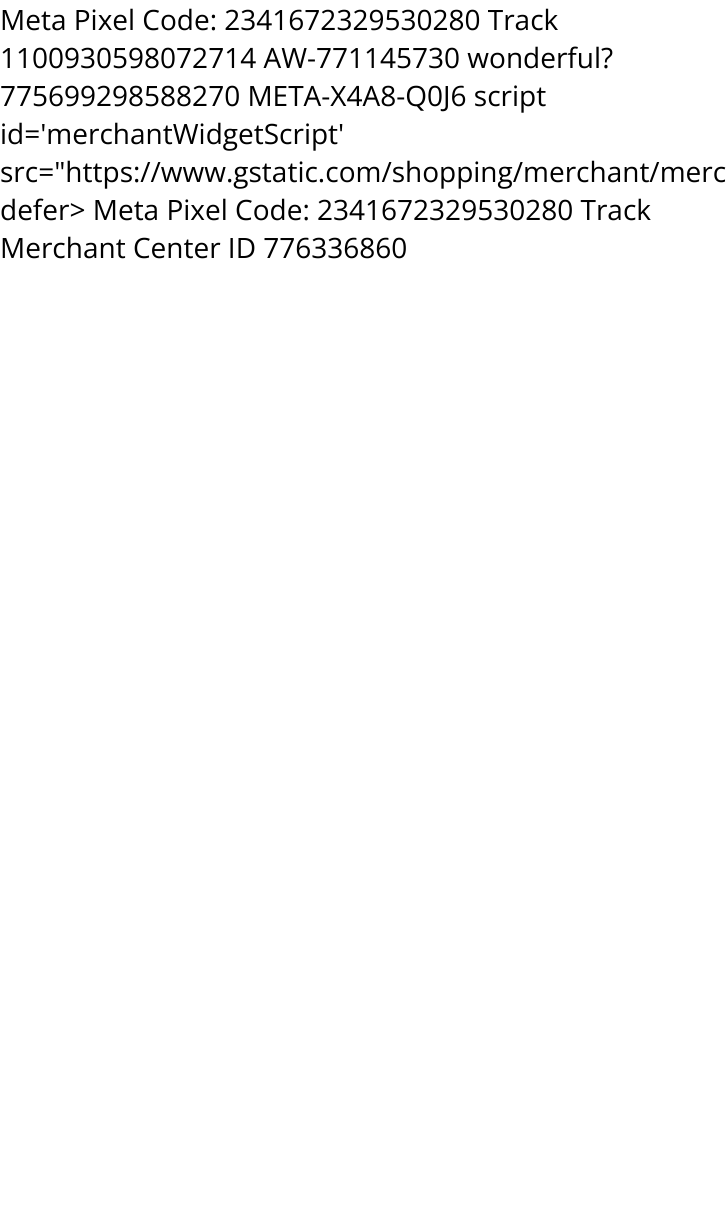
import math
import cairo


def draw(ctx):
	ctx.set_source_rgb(1, 1, 1)
	ctx.paint()
	ctx.select_font_face('Open Sans')
	ctx.set_font_size(28)
	ctx.set_source_rgb(0, 0, 0)
	for x, y, s in [
		(0, 30, 'Meta Pixel Code: 2341672329530280 Track'),
		(0, 68, '1100930598072714 AW-771145730 wonderful?'),
		(0, 106, '775699298588270 META-X4A8-Q0J6 script'),
		(0, 144, 'id=\'merchantWidgetScript\''),
		(0, 182, 'src="https://www.gstatic.com/shopping/merchant/merc'),
		(0, 220, 'defer> Meta Pixel Code: 2341672329530280 Track'),
		(0, 258, 'Merchant Center ID 776336860'),
	]:
		ctx.move_to(x, y)
		ctx.show_text(s)


surface = cairo.ImageSurface(cairo.FORMAT_RGB24, 727, 1220)
ctx = cairo.Context(surface)
options = cairo.FontOptions()
options.set_hint_metrics(cairo.HINT_METRICS_OFF)
options.set_hint_style(cairo.HINT_STYLE_NONE)
ctx.set_font_options(options)
ctx.set_miter_limit(4)
draw(ctx)
surface.write_to_png('image.png')
